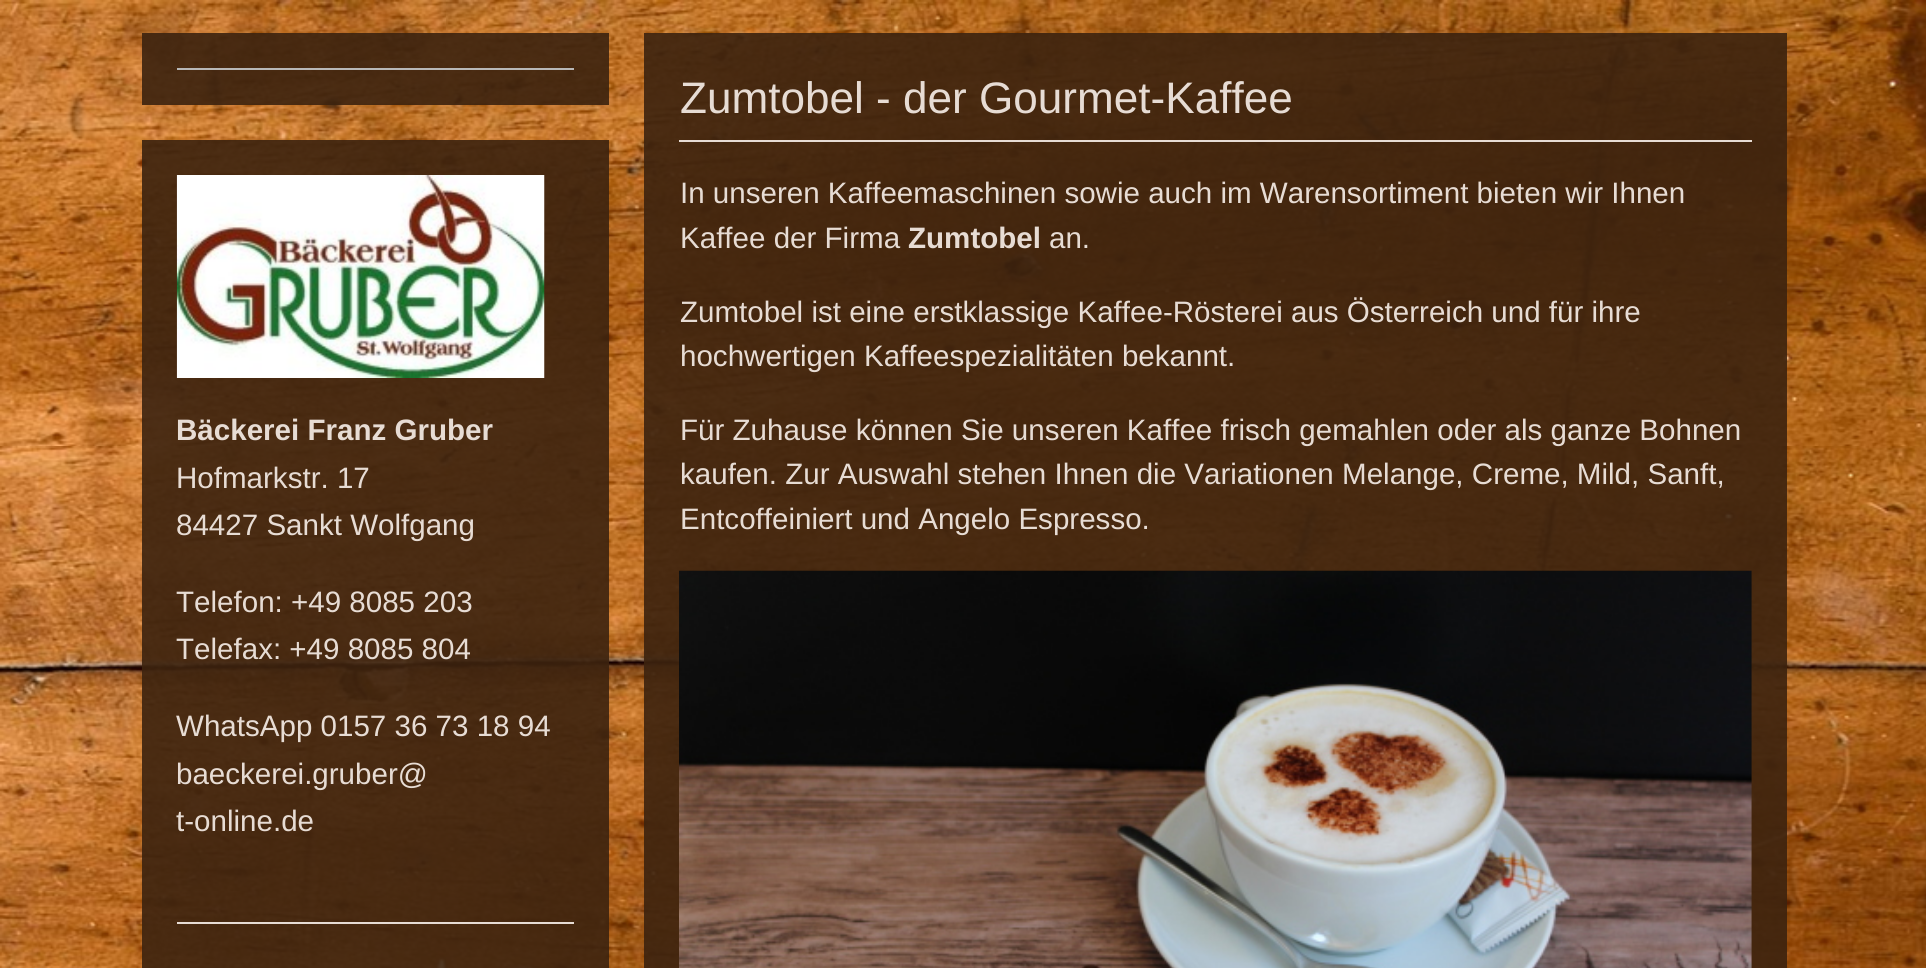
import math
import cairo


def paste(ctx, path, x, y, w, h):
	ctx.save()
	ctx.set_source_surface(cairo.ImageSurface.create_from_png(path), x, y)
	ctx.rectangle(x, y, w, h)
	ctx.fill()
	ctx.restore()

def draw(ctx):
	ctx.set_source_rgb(1, 1, 1)
	ctx.paint()
	paste(ctx, 'media/1.png', 0, 0, 1926, 968)
	ctx.set_source_rgba(0.235, 0.137, 0.059, 0.9)
	ctx.rectangle(644, 33, 1143, 935)
	ctx.fill()
	ctx.set_source_rgb(0.906, 0.863, 0.831)
	ctx.rectangle(679, 140, 1073, 2)
	ctx.fill()
	ctx.select_font_face('Liberation Sans')
	ctx.set_font_size(44.1)
	ctx.move_to(680, 113)
	ctx.show_text('Zumtobel - der Gourmet-Kaffee')
	ctx.set_font_size(29.55)
	ctx.move_to(680, 203)
	ctx.show_text('In unseren Kaffeemaschinen sowie auch im Warensortiment bieten wir Ihnen')
	ctx.move_to(680, 248)
	ctx.show_text('Kaffee der Firma')
	ctx.select_font_face('Liberation Sans', cairo.FONT_SLANT_NORMAL, cairo.FONT_WEIGHT_BOLD)
	ctx.move_to(908, 248)
	ctx.show_text('Zumtobel')
	ctx.select_font_face('Liberation Sans')
	for x, y, s in [
		(1049, 248, 'an.'),
		(680, 322, 'Zumtobel ist eine erstklassige Kaffee-Rösterei aus Österreich und für ihre'),
		(680, 366, 'hochwertigen Kaffeespezialitäten bekannt.'),
		(680, 440, 'Für Zuhause können Sie unseren Kaffee frisch gemahlen oder als ganze Bohnen'),
		(680, 484, 'kaufen. Zur Auswahl stehen Ihnen die Variationen Melange, Creme, Mild, Sanft,'),
		(680, 529, 'Entcoffeiniert und Angelo Espresso.'),
	]:
		ctx.move_to(x, y)
		ctx.show_text(s)
	paste(ctx, 'media/2.png', 679, 570, 1073, 398)
	ctx.set_source_rgba(0.235, 0.137, 0.059, 0.9)
	ctx.rectangle(142, 33, 467, 72)
	ctx.fill()
	ctx.set_source_rgb(0.722, 0.722, 0.722)
	ctx.rectangle(177, 68, 397, 2)
	ctx.fill()
	ctx.set_source_rgba(0.235, 0.137, 0.059, 0.9)
	ctx.rectangle(142, 140, 467, 828)
	ctx.fill()
	paste(ctx, 'media/3.png', 176, 175, 369, 203)
	ctx.select_font_face('Liberation Sans', cairo.FONT_SLANT_NORMAL, cairo.FONT_WEIGHT_BOLD)
	ctx.set_source_rgb(0.906, 0.863, 0.831)
	ctx.move_to(176, 440)
	ctx.show_text('Bäckerei Franz Gruber')
	ctx.select_font_face('Liberation Sans')
	for x, y, s in [
		(176, 488, 'Hofmarkstr. 17'),
		(176, 535, '84427 Sankt Wolfgang'),
		(176, 612, 'Telefon: +49 8085 203'),
		(176, 659, 'Telefax: +49 8085 804'),
		(176, 736, 'WhatsApp 0157 36 73 18 94'),
		(176, 784, 'baeckerei.gruber@'),
		(176, 831, 't-online.de'),
	]:
		ctx.move_to(x, y)
		ctx.show_text(s)
	ctx.rectangle(177, 922, 397, 2)
	ctx.fill()


surface = cairo.ImageSurface(cairo.FORMAT_RGB24, 1926, 968)
ctx = cairo.Context(surface)
options = cairo.FontOptions()
options.set_hint_metrics(cairo.HINT_METRICS_OFF)
options.set_hint_style(cairo.HINT_STYLE_NONE)
ctx.set_font_options(options)
ctx.set_miter_limit(4)
draw(ctx)
surface.write_to_png('image.png')
